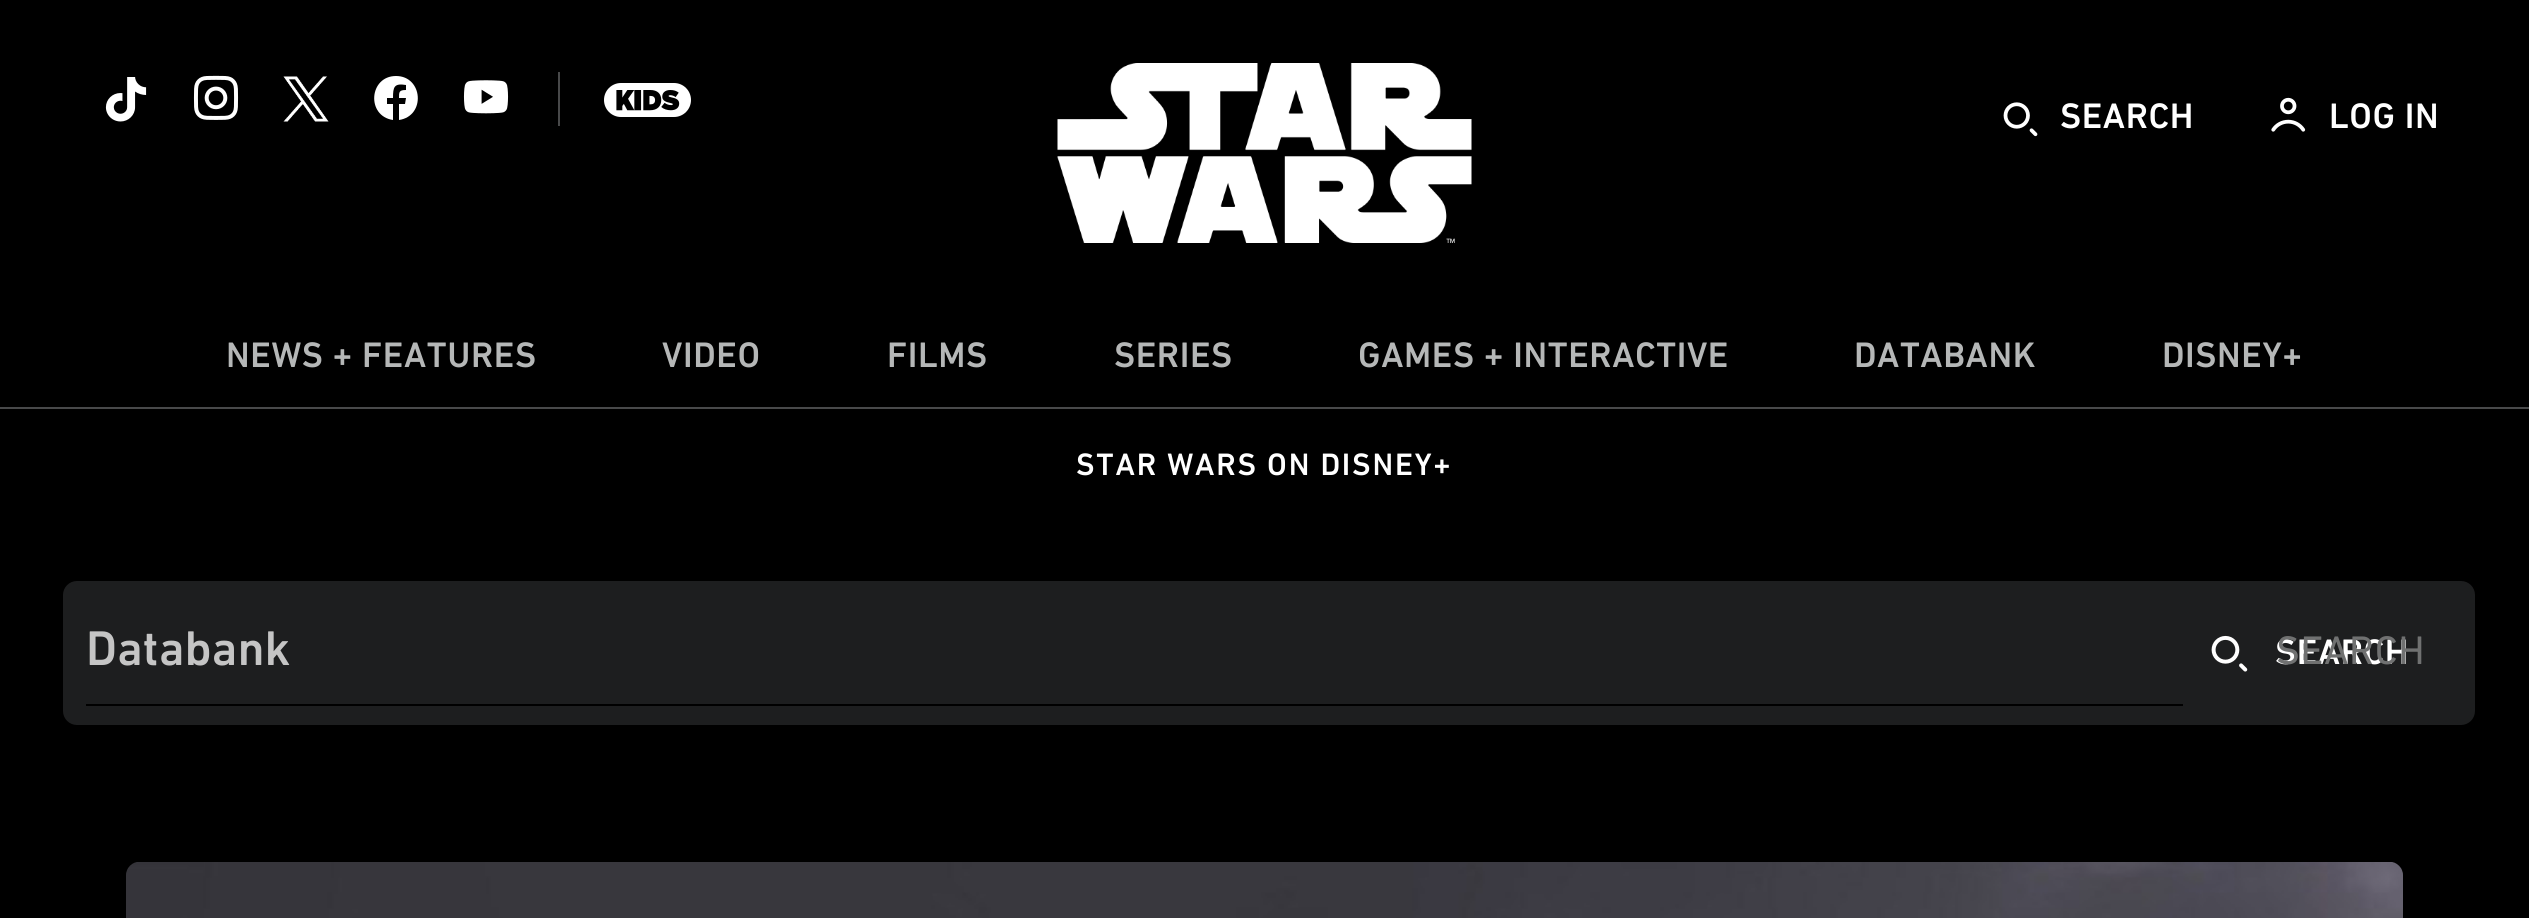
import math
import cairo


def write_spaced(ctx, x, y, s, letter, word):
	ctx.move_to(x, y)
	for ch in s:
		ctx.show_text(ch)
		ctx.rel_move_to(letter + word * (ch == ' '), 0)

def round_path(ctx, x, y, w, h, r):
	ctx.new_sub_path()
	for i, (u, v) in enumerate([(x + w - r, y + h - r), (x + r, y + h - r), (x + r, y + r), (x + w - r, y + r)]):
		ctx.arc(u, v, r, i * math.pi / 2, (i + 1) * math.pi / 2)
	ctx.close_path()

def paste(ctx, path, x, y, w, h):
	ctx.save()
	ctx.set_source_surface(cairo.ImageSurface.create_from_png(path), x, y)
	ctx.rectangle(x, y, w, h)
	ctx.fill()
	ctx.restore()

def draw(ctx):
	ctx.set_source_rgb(0, 0, 0)
	ctx.paint()
	paste(ctx, 'media/1.png', 105, 77, 42, 45)
	paste(ctx, 'media/2.png', 193, 75, 46, 45)
	paste(ctx, 'media/3.png', 283, 76, 46, 46)
	ctx.set_source_rgb(1, 1, 1)
	ctx.set_fill_rule(cairo.FILL_RULE_EVEN_ODD)
	ctx.new_path()
	ctx.move_to(396, 76)
	ctx.curve_to(369, 76, 366, 116, 393, 120)
	ctx.line_to(393, 104)
	ctx.line_to(387, 104)
	ctx.line_to(387, 98)
	ctx.line_to(393, 98)
	ctx.curve_to(393, 87, 394, 83, 406, 85)
	ctx.line_to(406, 90)
	ctx.curve_to(399, 90, 399, 92, 399, 98)
	ctx.line_to(406, 98)
	ctx.line_to(405, 104)
	ctx.line_to(399, 104)
	ctx.line_to(399, 120)
	ctx.curve_to(426, 116, 423, 76, 396, 76)
	ctx.close_path()
	ctx.fill()
	paste(ctx, 'media/4.png', 463, 80, 46, 34)
	ctx.set_source_rgb(0.282, 0.286, 0.29)
	ctx.rectangle(558, 72, 2, 54)
	ctx.fill()
	paste(ctx, 'media/5.png', 604, 83, 87, 34)
	paste(ctx, 'media/6.png', 1057, 63, 415, 180)
	paste(ctx, 'media/7.png', 2003, 102, 35, 35)
	ctx.select_font_face('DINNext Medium')
	ctx.set_font_size(36)
	ctx.set_source_rgb(1, 1, 1)
	write_spaced(ctx, 2060, 128, 'SEARCH', 0.6, 0)
	paste(ctx, 'media/8.png', 2271, 97, 35, 35)
	write_spaced(ctx, 2329, 128, 'LOG IN', 0.6, 0)
	ctx.set_source_rgb(0.282, 0.286, 0.29)
	ctx.rectangle(0, 407, 2529, 2)
	ctx.fill()
	ctx.set_source_rgb(0.71, 0.718, 0.718)
	for x, y, s in [
		(226, 367, 'NEWS + FEATURES'),
		(662, 367, 'VIDEO'),
		(887, 367, 'FILMS'),
		(1114, 367, 'SERIES'),
		(1358, 367, 'GAMES + INTERACTIVE'),
		(1854, 367, 'DATABANK'),
		(2162, 367, 'DISNEY+'),
	]:
		write_spaced(ctx, x, y, s, 0.6, 0)
	ctx.set_font_size(31.5)
	ctx.set_source_rgb(1, 1, 1)
	write_spaced(ctx, 1076, 475, 'STAR WARS ON DISNEY+', 1.8, 0)
	ctx.set_source_rgb(0.114, 0.118, 0.122)
	round_path(ctx, 63, 581, 2412, 144, 14)
	ctx.fill()
	ctx.set_font_size(49.5)
	ctx.set_source_rgb(0.773, 0.773, 0.773)
	ctx.move_to(86, 665)
	ctx.show_text('Databank')
	ctx.set_font_size(36)
	ctx.set_source_rgb(1, 1, 1)
	write_spaced(ctx, 2275, 664, 'SEARCH', 0.6, 0)
	ctx.set_source_rgb(0, 0, 0)
	ctx.rectangle(86, 704, 2097, 2)
	ctx.fill()
	paste(ctx, 'media/9.png', 2211, 635, 37, 37)
	ctx.select_font_face('DINNext')
	ctx.set_font_size(40.5)
	ctx.set_source_rgb(0.439, 0.443, 0.443)
	write_spaced(ctx, 2276, 664, 'SEARCH', 0.6, 0)
	paste(ctx, 'media/10.png', 126, 862, 2277, 56)


surface = cairo.ImageSurface(cairo.FORMAT_RGB24, 2529, 918)
ctx = cairo.Context(surface)
options = cairo.FontOptions()
options.set_hint_metrics(cairo.HINT_METRICS_OFF)
options.set_hint_style(cairo.HINT_STYLE_NONE)
ctx.set_font_options(options)
ctx.set_miter_limit(4)
draw(ctx)
surface.write_to_png('image.png')
